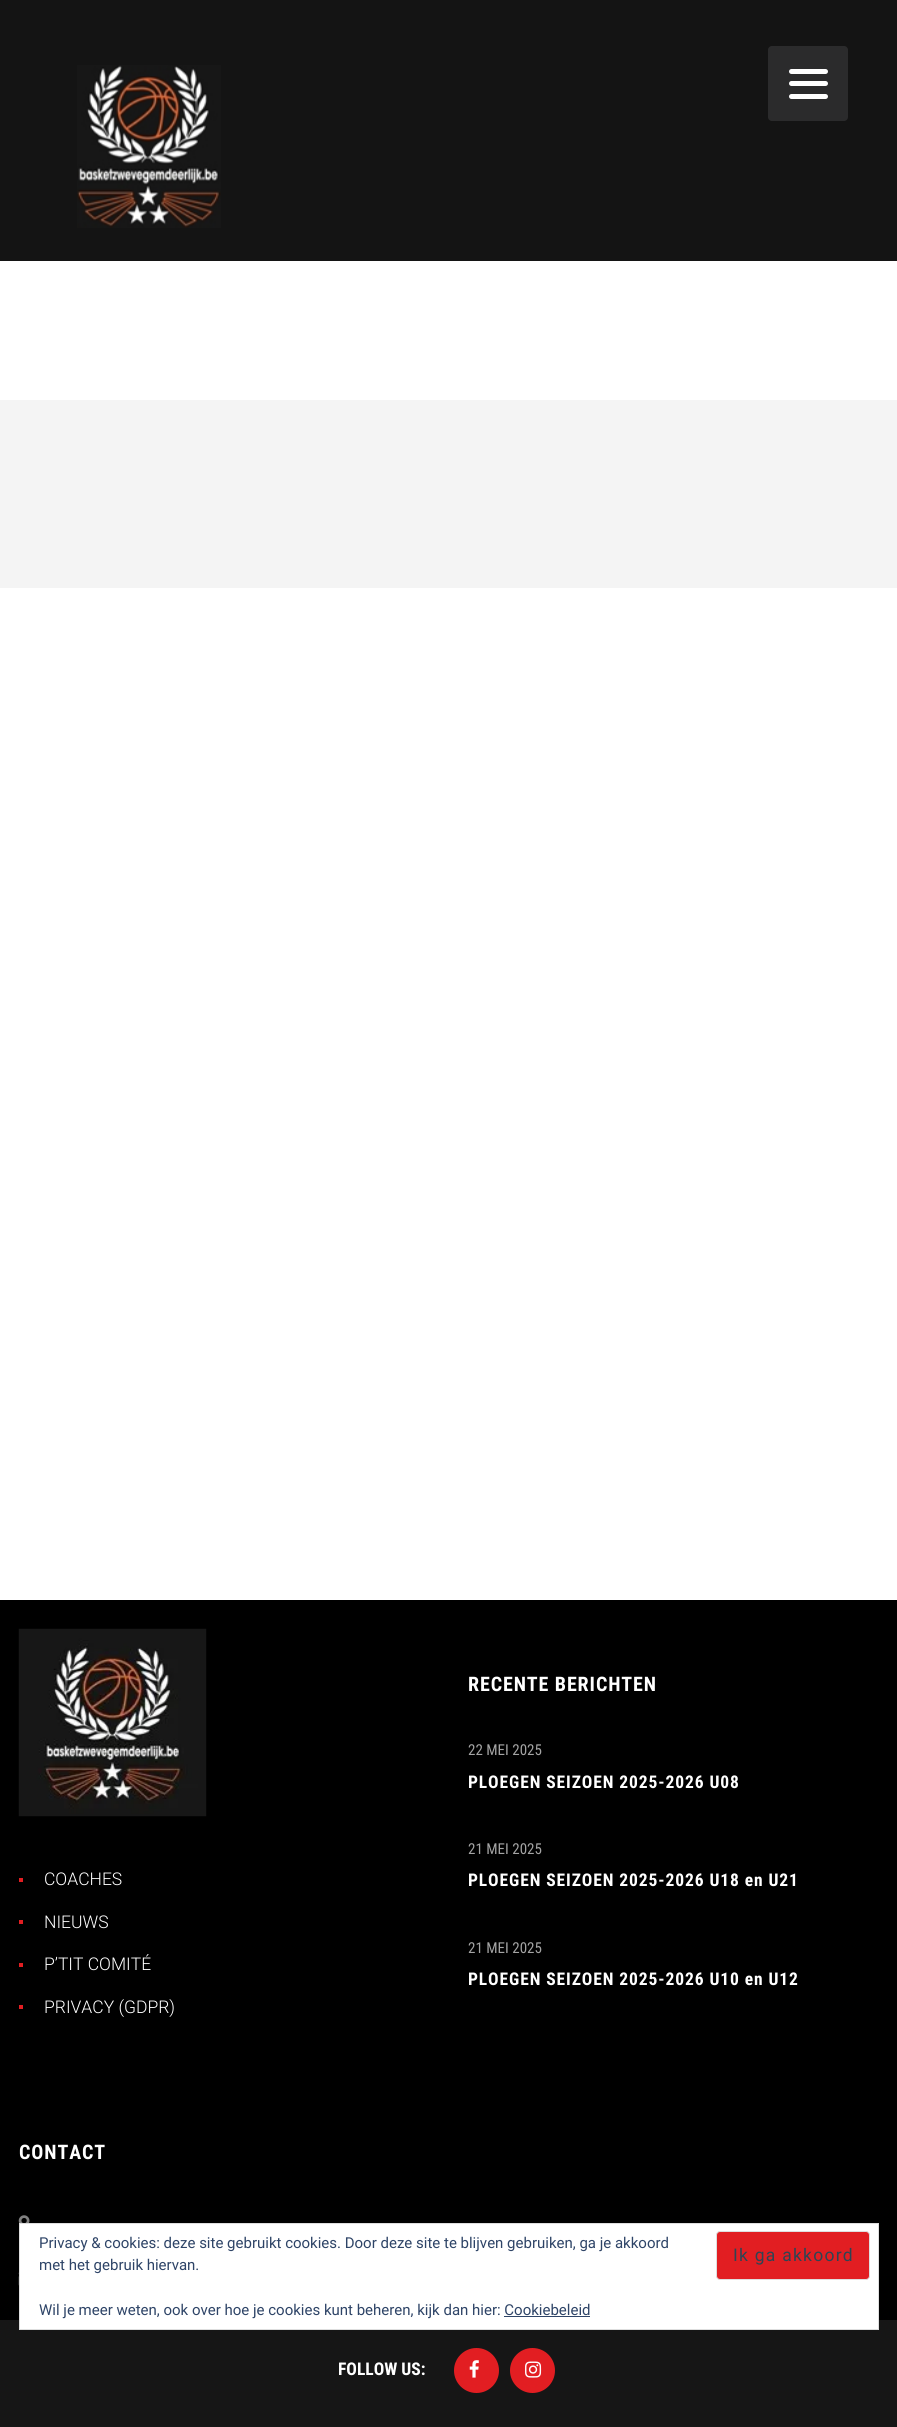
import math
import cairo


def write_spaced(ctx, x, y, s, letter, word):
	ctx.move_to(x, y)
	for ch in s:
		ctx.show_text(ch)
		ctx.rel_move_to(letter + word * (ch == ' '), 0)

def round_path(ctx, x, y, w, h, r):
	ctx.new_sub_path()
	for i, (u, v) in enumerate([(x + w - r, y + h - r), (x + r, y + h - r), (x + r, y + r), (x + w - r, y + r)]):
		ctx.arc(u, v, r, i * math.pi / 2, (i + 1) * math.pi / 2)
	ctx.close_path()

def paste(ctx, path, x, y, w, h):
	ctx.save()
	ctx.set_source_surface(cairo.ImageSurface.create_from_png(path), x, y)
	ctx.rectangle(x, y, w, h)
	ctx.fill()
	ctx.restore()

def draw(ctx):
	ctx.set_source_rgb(0, 0, 0)
	ctx.paint()
	ctx.set_source_rgb(1, 1, 1)
	ctx.rectangle(0, 261, 897, 1339)
	ctx.fill()
	ctx.set_source_rgb(0.082, 0.082, 0.082)
	ctx.rectangle(0, 0, 897, 261)
	ctx.fill()
	paste(ctx, 'media/1.png', 77, 65, 144, 163)
	ctx.set_source_rgb(0.169, 0.169, 0.173)
	round_path(ctx, 768, 46, 80, 75, 4)
	ctx.fill()
	ctx.set_source_rgb(1, 1, 1)
	round_path(ctx, 789, 69, 39, 5, 2.5)
	ctx.fill()
	round_path(ctx, 789, 81, 39, 5, 2.5)
	ctx.fill()
	round_path(ctx, 789, 94, 39, 5, 2.5)
	ctx.fill()
	ctx.set_source_rgb(0.957, 0.957, 0.957)
	ctx.rectangle(0, 400, 897, 188)
	ctx.fill()
	paste(ctx, 'media/2.png', 18, 1628, 189, 189)
	ctx.set_source_rgb(0.886, 0.118, 0.133)
	ctx.rectangle(19, 1878, 4, 4)
	ctx.fill()
	ctx.select_font_face('Roboto Light')
	ctx.set_font_size(17.5)
	ctx.set_source_rgb(1, 1, 1)
	ctx.move_to(44, 1885)
	ctx.show_text('COACHES')
	ctx.set_source_rgb(0.886, 0.118, 0.133)
	ctx.rectangle(19, 1920, 4, 4)
	ctx.fill()
	ctx.set_source_rgb(1, 1, 1)
	ctx.move_to(44, 1928)
	ctx.show_text('NIEUWS')
	ctx.set_source_rgb(0.886, 0.118, 0.133)
	ctx.rectangle(19, 1963, 4, 4)
	ctx.fill()
	ctx.set_source_rgb(1, 1, 1)
	ctx.move_to(44, 1970)
	ctx.show_text('P’TIT COMITÉ')
	ctx.set_source_rgb(0.886, 0.118, 0.133)
	ctx.rectangle(19, 2005, 4, 4)
	ctx.fill()
	ctx.set_source_rgb(1, 1, 1)
	ctx.move_to(44, 2013)
	ctx.show_text('PRIVACY (GDPR)')
	ctx.select_font_face('Roboto Condensed', cairo.FONT_SLANT_NORMAL, cairo.FONT_WEIGHT_BOLD)
	ctx.set_font_size(20)
	write_spaced(ctx, 468, 1691, 'RECENTE BERICHTEN', 0.9, 0)
	ctx.select_font_face('Roboto Condensed')
	ctx.set_font_size(15)
	ctx.set_source_rgb(0.643, 0.643, 0.643)
	ctx.move_to(468, 1755)
	ctx.show_text('22 MEI 2025')
	ctx.select_font_face('Roboto Condensed', cairo.FONT_SLANT_NORMAL, cairo.FONT_WEIGHT_BOLD)
	ctx.set_font_size(17.5)
	ctx.set_source_rgb(1, 1, 1)
	write_spaced(ctx, 468, 1788, 'PLOEGEN SEIZOEN 2025-2026 U08', 0.9, 0)
	ctx.select_font_face('Roboto Condensed')
	ctx.set_font_size(15)
	ctx.set_source_rgb(0.643, 0.643, 0.643)
	ctx.move_to(468, 1854)
	ctx.show_text('21 MEI 2025')
	ctx.select_font_face('Roboto Condensed', cairo.FONT_SLANT_NORMAL, cairo.FONT_WEIGHT_BOLD)
	ctx.set_font_size(17.5)
	ctx.set_source_rgb(1, 1, 1)
	write_spaced(ctx, 468, 1886, 'PLOEGEN SEIZOEN 2025-2026 U18 en U21', 0.9, 0)
	ctx.select_font_face('Roboto Condensed')
	ctx.set_font_size(15)
	ctx.set_source_rgb(0.643, 0.643, 0.643)
	ctx.move_to(468, 1953)
	ctx.show_text('21 MEI 2025')
	ctx.select_font_face('Roboto Condensed', cairo.FONT_SLANT_NORMAL, cairo.FONT_WEIGHT_BOLD)
	ctx.set_font_size(17.5)
	ctx.set_source_rgb(1, 1, 1)
	write_spaced(ctx, 468, 1985, 'PLOEGEN SEIZOEN 2025-2026 U10 en U12', 0.9, 0)
	ctx.set_font_size(20)
	write_spaced(ctx, 19, 2159, 'CONTACT', 0.9, 0)
	paste(ctx, 'media/3.png', 18, 2215, 12, 8)
	paste(ctx, 'media/4.png', 18, 2272, 1, 14)
	ctx.set_source_rgb(0.086, 0.086, 0.086)
	ctx.rectangle(0, 2320, 897, 107)
	ctx.fill()
	ctx.set_font_size(17.5)
	ctx.set_source_rgb(1, 1, 1)
	ctx.move_to(338, 2375)
	ctx.show_text('FOLLOW US:')
	ctx.set_source_rgb(0.886, 0.118, 0.133)
	ctx.new_path()
	ctx.arc(476.5, 2370.5, 22.5, 0, 2 * math.pi)
	ctx.fill()
	paste(ctx, 'media/5.png', 469, 2360, 10, 18)
	ctx.arc(532.5, 2370.5, 22.5, 0, 2 * math.pi)
	ctx.fill()
	paste(ctx, 'media/6.png', 525, 2361, 17, 17)
	ctx.set_source_rgb(1, 1, 1)
	ctx.rectangle(19.5, 2223.5, 859, 106)
	ctx.fill_preserve()
	ctx.set_source_rgb(0.871, 0.871, 0.871)
	ctx.set_line_width(1)
	ctx.stroke()
	ctx.select_font_face('Roboto')
	ctx.set_font_size(15)
	ctx.set_source_rgb(0.18, 0.267, 0.404)
	ctx.move_to(39, 2248)
	ctx.show_text('Privacy & cookies: deze site gebruikt cookies. Door deze site te blijven gebruiken, ga je akkoord')
	ctx.move_to(39, 2270)
	ctx.show_text('met het gebruik hiervan.')
	ctx.set_source_rgb(0.886, 0.118, 0.133)
	round_path(ctx, 716.5, 2231.5, 153, 48, 3.5)
	ctx.fill_preserve()
	ctx.set_source_rgb(0.871, 0.871, 0.871)
	ctx.stroke()
	ctx.set_font_size(17.5)
	ctx.set_source_rgb(0.18, 0.267, 0.325)
	write_spaced(ctx, 733, 2261, 'Ik ga akkoord', 1.25, 0)
	ctx.set_font_size(15)
	ctx.set_source_rgb(0.18, 0.267, 0.404)
	ctx.move_to(39, 2315)
	ctx.show_text('Wil je meer weten, ook over hoe je cookies kunt beheren, kijk dan hier: Cookiebeleid')
	ctx.rectangle(504, 2316, 86, 1)
	ctx.fill()


surface = cairo.ImageSurface(cairo.FORMAT_RGB24, 897, 2427)
ctx = cairo.Context(surface)
options = cairo.FontOptions()
options.set_hint_metrics(cairo.HINT_METRICS_OFF)
options.set_hint_style(cairo.HINT_STYLE_NONE)
ctx.set_font_options(options)
ctx.set_miter_limit(4)
draw(ctx)
surface.write_to_png('image.png')
